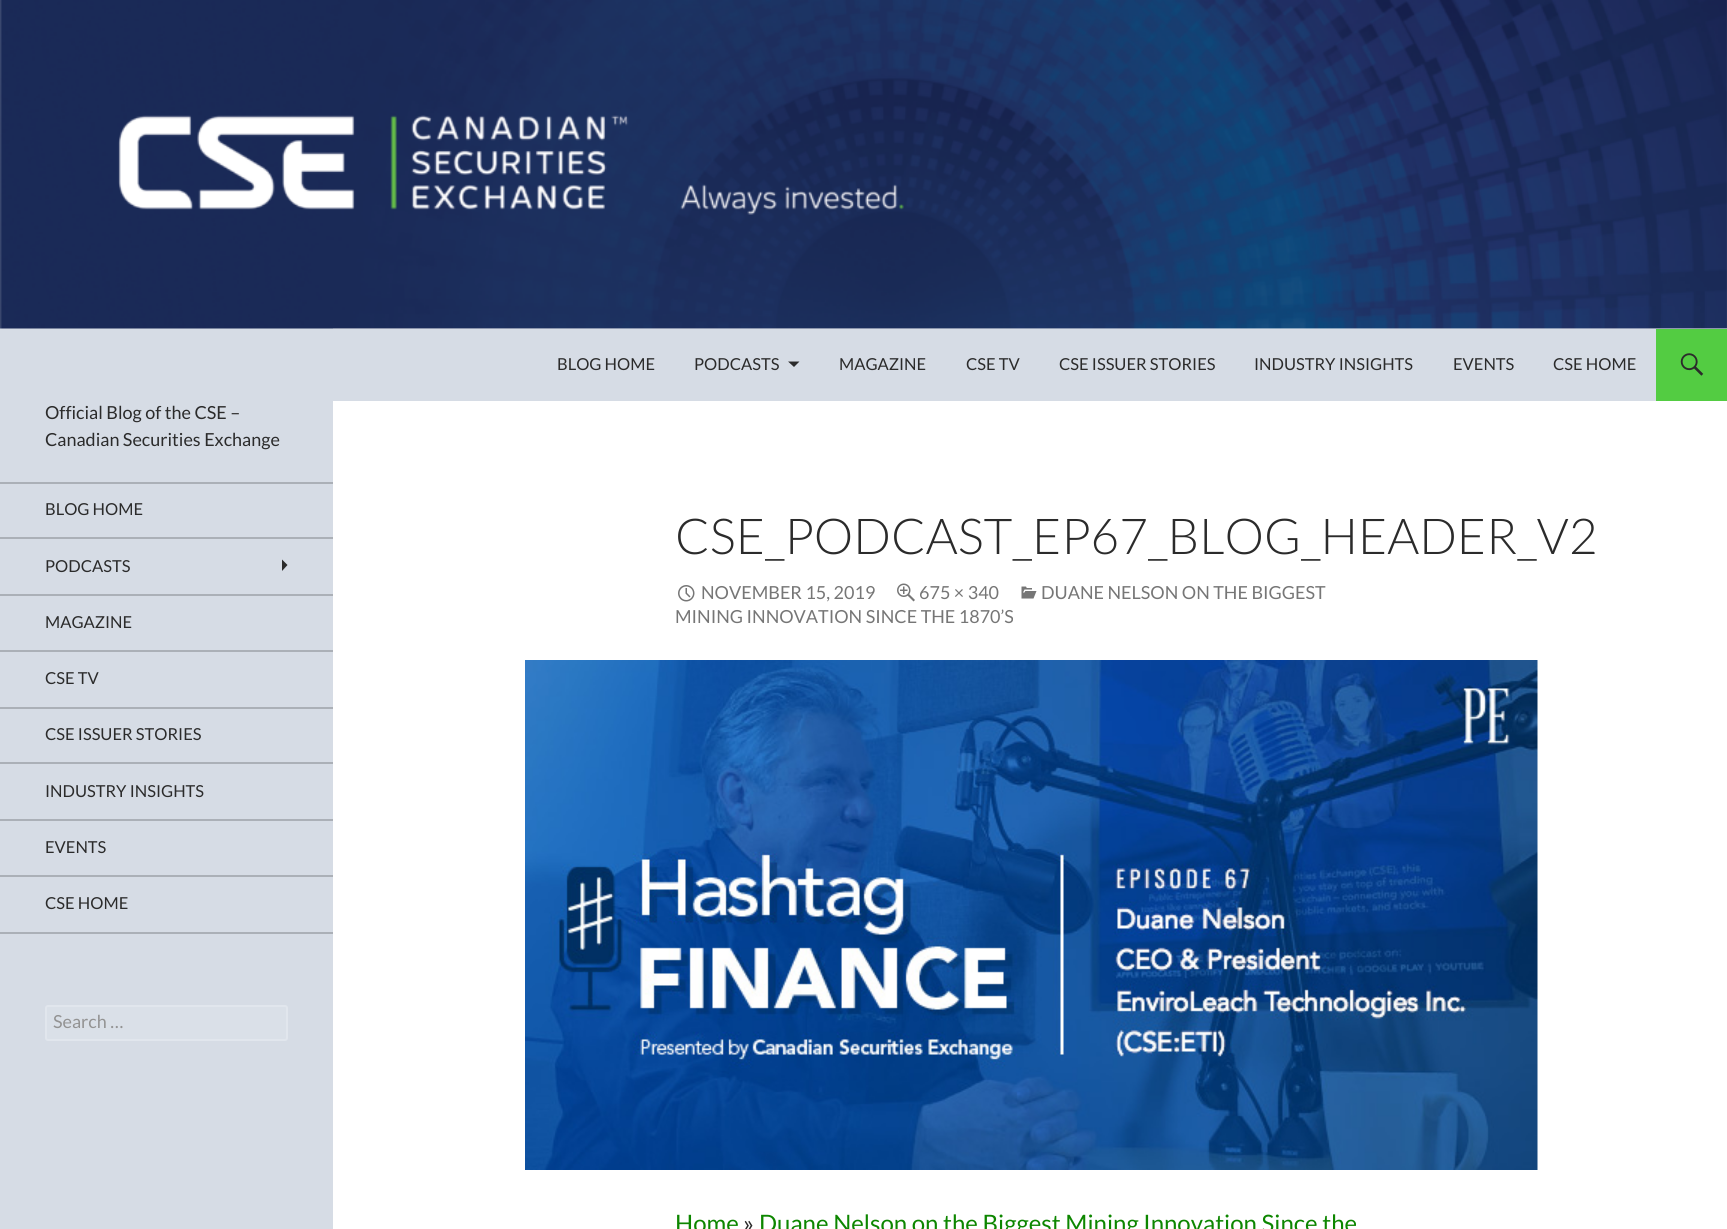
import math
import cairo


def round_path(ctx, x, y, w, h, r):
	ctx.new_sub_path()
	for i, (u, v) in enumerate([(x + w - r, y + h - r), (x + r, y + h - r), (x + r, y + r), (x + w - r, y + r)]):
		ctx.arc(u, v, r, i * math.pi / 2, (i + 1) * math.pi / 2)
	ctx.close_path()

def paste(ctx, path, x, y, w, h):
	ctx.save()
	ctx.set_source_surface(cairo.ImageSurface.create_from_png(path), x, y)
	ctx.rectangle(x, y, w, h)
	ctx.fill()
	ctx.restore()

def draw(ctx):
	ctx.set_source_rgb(1, 1, 1)
	ctx.paint()
	ctx.set_source_rgb(0.839, 0.863, 0.898)
	ctx.rectangle(0, 328, 333, 901)
	ctx.fill()
	paste(ctx, 'media/1.png', 0, 0, 1727, 329)
	ctx.rectangle(333, 329, 1323, 72)
	ctx.fill()
	ctx.select_font_face('Lato')
	ctx.set_font_size(16.5)
	ctx.set_source_rgb(0.169, 0.169, 0.169)
	ctx.move_to(557, 370)
	ctx.show_text('BLOG HOME')
	ctx.move_to(694, 370)
	ctx.show_text('PODCASTS')
	ctx.new_path()
	ctx.move_to(788, 361.5)
	ctx.line_to(799.5, 361.5)
	ctx.line_to(794, 367)
	ctx.close_path()
	ctx.fill()
	for x, y, s in [
		(839, 370, 'MAGAZINE'),
		(966, 370, 'CSE TV'),
		(1059, 370, 'CSE ISSUER STORIES'),
		(1254, 370, 'INDUSTRY INSIGHTS'),
		(1453, 370, 'EVENTS'),
		(1553, 370, 'CSE HOME'),
	]:
		ctx.move_to(x, y)
		ctx.show_text(s)
	ctx.set_source_rgb(0.325, 0.8, 0.259)
	ctx.rectangle(1656, 329, 71, 72)
	ctx.fill()
	paste(ctx, 'media/2.png', 1680, 353, 24, 23)
	ctx.set_font_size(18)
	ctx.set_source_rgb(0.169, 0.169, 0.169)
	ctx.move_to(45, 419)
	ctx.show_text('Official Blog of the CSE –')
	ctx.move_to(45, 446)
	ctx.show_text('Canadian Securities Exchange')
	ctx.set_source_rgb(0.671, 0.69, 0.718)
	ctx.rectangle(0, 932, 333, 2)
	ctx.fill()
	ctx.rectangle(0, 482, 333, 2)
	ctx.fill()
	ctx.set_font_size(16.5)
	ctx.set_source_rgb(0.169, 0.169, 0.169)
	ctx.move_to(45, 515)
	ctx.show_text('BLOG HOME')
	ctx.set_source_rgb(0.671, 0.69, 0.718)
	ctx.rectangle(0, 537, 333, 2)
	ctx.fill()
	ctx.set_source_rgb(0.169, 0.169, 0.169)
	ctx.move_to(45, 572)
	ctx.show_text('PODCASTS')
	ctx.new_path()
	ctx.move_to(282, 571)
	ctx.line_to(282, 559.5)
	ctx.line_to(287.5, 565)
	ctx.close_path()
	ctx.fill()
	ctx.set_source_rgb(0.671, 0.69, 0.718)
	ctx.rectangle(0, 594, 333, 2)
	ctx.fill()
	ctx.set_source_rgb(0.169, 0.169, 0.169)
	ctx.move_to(45, 628)
	ctx.show_text('MAGAZINE')
	ctx.set_source_rgb(0.671, 0.69, 0.718)
	ctx.rectangle(0, 650, 333, 2)
	ctx.fill()
	ctx.set_source_rgb(0.169, 0.169, 0.169)
	ctx.move_to(45, 684)
	ctx.show_text('CSE TV')
	ctx.set_source_rgb(0.671, 0.69, 0.718)
	ctx.rectangle(0, 707, 333, 2)
	ctx.fill()
	ctx.set_source_rgb(0.169, 0.169, 0.169)
	ctx.move_to(45, 740)
	ctx.show_text('CSE ISSUER STORIES')
	ctx.set_source_rgb(0.671, 0.69, 0.718)
	ctx.rectangle(0, 762, 333, 2)
	ctx.fill()
	ctx.set_source_rgb(0.169, 0.169, 0.169)
	ctx.move_to(45, 797)
	ctx.show_text('INDUSTRY INSIGHTS')
	ctx.set_source_rgb(0.671, 0.69, 0.718)
	ctx.rectangle(0, 819, 333, 2)
	ctx.fill()
	ctx.set_source_rgb(0.169, 0.169, 0.169)
	ctx.move_to(45, 853)
	ctx.show_text('EVENTS')
	ctx.set_source_rgb(0.671, 0.69, 0.718)
	ctx.rectangle(0, 875, 333, 2)
	ctx.fill()
	ctx.set_source_rgb(0.169, 0.169, 0.169)
	ctx.move_to(45, 909)
	ctx.show_text('CSE HOME')
	ctx.set_source_rgb(0.855, 0.878, 0.91)
	round_path(ctx, 46, 1006, 241, 34, 2)
	ctx.fill_preserve()
	ctx.set_source_rgb(0.882, 0.902, 0.929)
	ctx.stroke()
	ctx.set_font_size(18)
	ctx.set_source_rgb(0.576, 0.576, 0.576)
	ctx.move_to(53, 1028)
	ctx.show_text('Search …')
	ctx.select_font_face('Lato Light')
	ctx.set_font_size(49.5)
	ctx.set_source_rgb(0.169, 0.169, 0.169)
	ctx.move_to(675, 554)
	ctx.show_text('CSE_PODCAST_EP67_BLOG_HEADER_V2')
	paste(ctx, 'media/3.png', 1021, 586, 16, 13)
	ctx.select_font_face('Lato')
	ctx.set_font_size(18)
	ctx.set_source_rgb(0.463, 0.463, 0.463)
	ctx.move_to(1041, 599)
	ctx.show_text('DUANE NELSON ON THE BIGGEST')
	ctx.move_to(675, 623)
	ctx.show_text('MINING INNOVATION SINCE THE 1870’S')
	paste(ctx, 'media/4.png', 678, 585, 17, 17)
	ctx.move_to(701, 599)
	ctx.show_text('NOVEMBER 15, 2019')
	paste(ctx, 'media/5.png', 897, 583, 18, 19)
	ctx.move_to(919, 599)
	ctx.show_text('675 × 340')
	paste(ctx, 'media/6.png', 525, 660, 1013, 510)
	ctx.set_font_size(24)
	ctx.set_source_rgb(0.051, 0.525, 0)
	ctx.move_to(675, 1232)
	ctx.show_text('Home')
	ctx.set_source_rgb(0.169, 0.169, 0.169)
	ctx.move_to(743, 1232)
	ctx.show_text('»')
	ctx.set_source_rgb(0.051, 0.525, 0)
	ctx.move_to(759, 1232)
	ctx.show_text('Duane Nelson on the Biggest Mining Innovation Since the')


surface = cairo.ImageSurface(cairo.FORMAT_RGB24, 1727, 1229)
ctx = cairo.Context(surface)
options = cairo.FontOptions()
options.set_hint_metrics(cairo.HINT_METRICS_OFF)
options.set_hint_style(cairo.HINT_STYLE_NONE)
ctx.set_font_options(options)
ctx.set_miter_limit(4)
draw(ctx)
surface.write_to_png('image.png')
